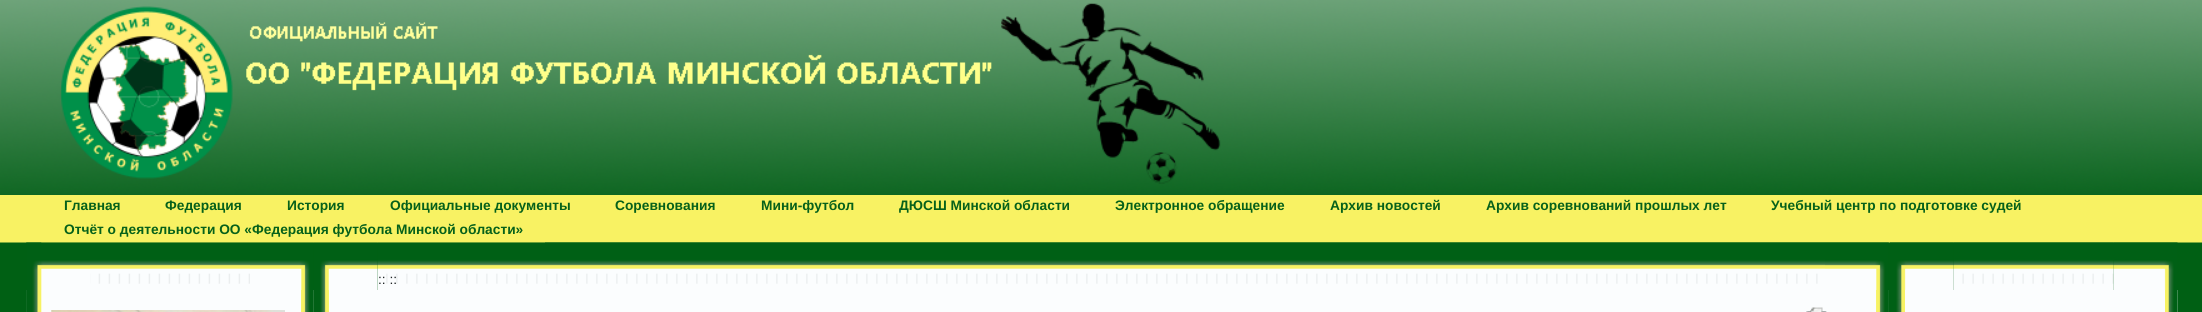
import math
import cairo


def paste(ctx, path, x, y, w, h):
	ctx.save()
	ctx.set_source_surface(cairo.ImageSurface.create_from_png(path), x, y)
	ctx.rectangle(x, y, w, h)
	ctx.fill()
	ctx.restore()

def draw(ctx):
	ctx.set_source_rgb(0, 0.376, 0.082)
	ctx.paint()
	paste(ctx, 'media/1.png', 0, 0, 2202, 195)
	ctx.set_source_rgb(0.969, 0.949, 0.388)
	ctx.rectangle(0, 195, 2202, 47)
	ctx.fill()
	ctx.select_font_face('Liberation Sans', cairo.FONT_SLANT_NORMAL, cairo.FONT_WEIGHT_BOLD)
	ctx.set_font_size(13.75)
	ctx.set_source_rgb(0.024, 0.38, 0.102)
	for x, y, s in [
		(64, 210, 'Главная'),
		(165, 210, 'Федерация'),
		(287, 210, 'История'),
		(390, 210, 'Официальные документы'),
		(615, 210, 'Соревнования'),
		(761, 210, 'Мини-футбол'),
		(899, 210, 'ДЮСШ Минской области'),
		(1115, 210, 'Электронное обращение'),
		(1330, 210, 'Архив новостей'),
		(1486, 210, 'Архив соревнований прошлых лет'),
		(1771, 210, 'Учебный центр по подготовке судей'),
	]:
		ctx.move_to(x, y)
		ctx.show_text(s)
	ctx.set_source_rgb(0.486, 0.663, 0.239)
	ctx.rectangle(0, 242, 2202, 1)
	ctx.fill()
	paste(ctx, 'media/3.png', 26, 242, 64, 48)
	paste(ctx, 'media/4.png', 90, 242, 160, 48)
	paste(ctx, 'media/5.png', 250, 242, 64, 48)
	paste(ctx, 'media/12.png', 377, 242, 1448, 48)
	paste(ctx, 'media/11.png', 313, 242, 65, 48)
	paste(ctx, 'media/2.png', 41, 242, 504, 1)
	ctx.set_source_rgb(0.024, 0.38, 0.102)
	ctx.move_to(64, 234)
	ctx.show_text('Отчёт о деятельности ОО «Федерация футбола Минской области»')
	ctx.set_source_rgb(0.984, 0.992, 0.996)
	ctx.rectangle(26, 290, 276, 22)
	ctx.fill()
	paste(ctx, 'media/6.png', 26, 290, 1, 22)
	ctx.set_source_rgb(0.984, 0.988, 0.957)
	ctx.rectangle(41, 290, 1, 22)
	ctx.fill()
	paste(ctx, 'media/7.png', 26, 290, 16, 22)
	paste(ctx, 'media/8.png', 51, 310, 234, 2)
	paste(ctx, 'media/9.png', 301, 290, 1, 22)
	ctx.set_source_rgb(0.984, 0.992, 0.996)
	ctx.rectangle(313, 290, 1576, 22)
	ctx.fill()
	paste(ctx, 'media/14.png', 313, 290, 16, 22)
	paste(ctx, 'media/10.png', 301, 290, 13, 22)
	ctx.select_font_face('Liberation Sans')
	ctx.set_source_rgb(0.125, 0.145, 0.153)
	ctx.move_to(378, 284)
	ctx.show_text(':: ::')
	paste(ctx, 'media/13.png', 1825, 242, 64, 48)
	paste(ctx, 'media/15.png', 313, 290, 16, 22)
	paste(ctx, 'media/16.png', 1806, 307, 21, 5)
	paste(ctx, 'media/17.png', 1876, 290, 13, 22)
	paste(ctx, 'media/18.png', 1876, 290, 13, 22)
	paste(ctx, 'media/20.png', 1953, 242, 161, 48)
	paste(ctx, 'media/19.png', 1890, 242, 64, 48)
	paste(ctx, 'media/21.png', 2113, 242, 65, 48)
	ctx.set_source_rgb(0.984, 0.992, 0.996)
	ctx.rectangle(1905, 290, 273, 22)
	ctx.fill()
	paste(ctx, 'media/22.png', 1890, 290, 15, 22)
	paste(ctx, 'media/23.png', 2165, 290, 13, 22)
	paste(ctx, 'media/24.png', 2168, 290, 10, 22)


surface = cairo.ImageSurface(cairo.FORMAT_RGB24, 2202, 312)
ctx = cairo.Context(surface)
options = cairo.FontOptions()
options.set_hint_metrics(cairo.HINT_METRICS_OFF)
options.set_hint_style(cairo.HINT_STYLE_NONE)
ctx.set_font_options(options)
ctx.set_miter_limit(4)
draw(ctx)
surface.write_to_png('image.png')
